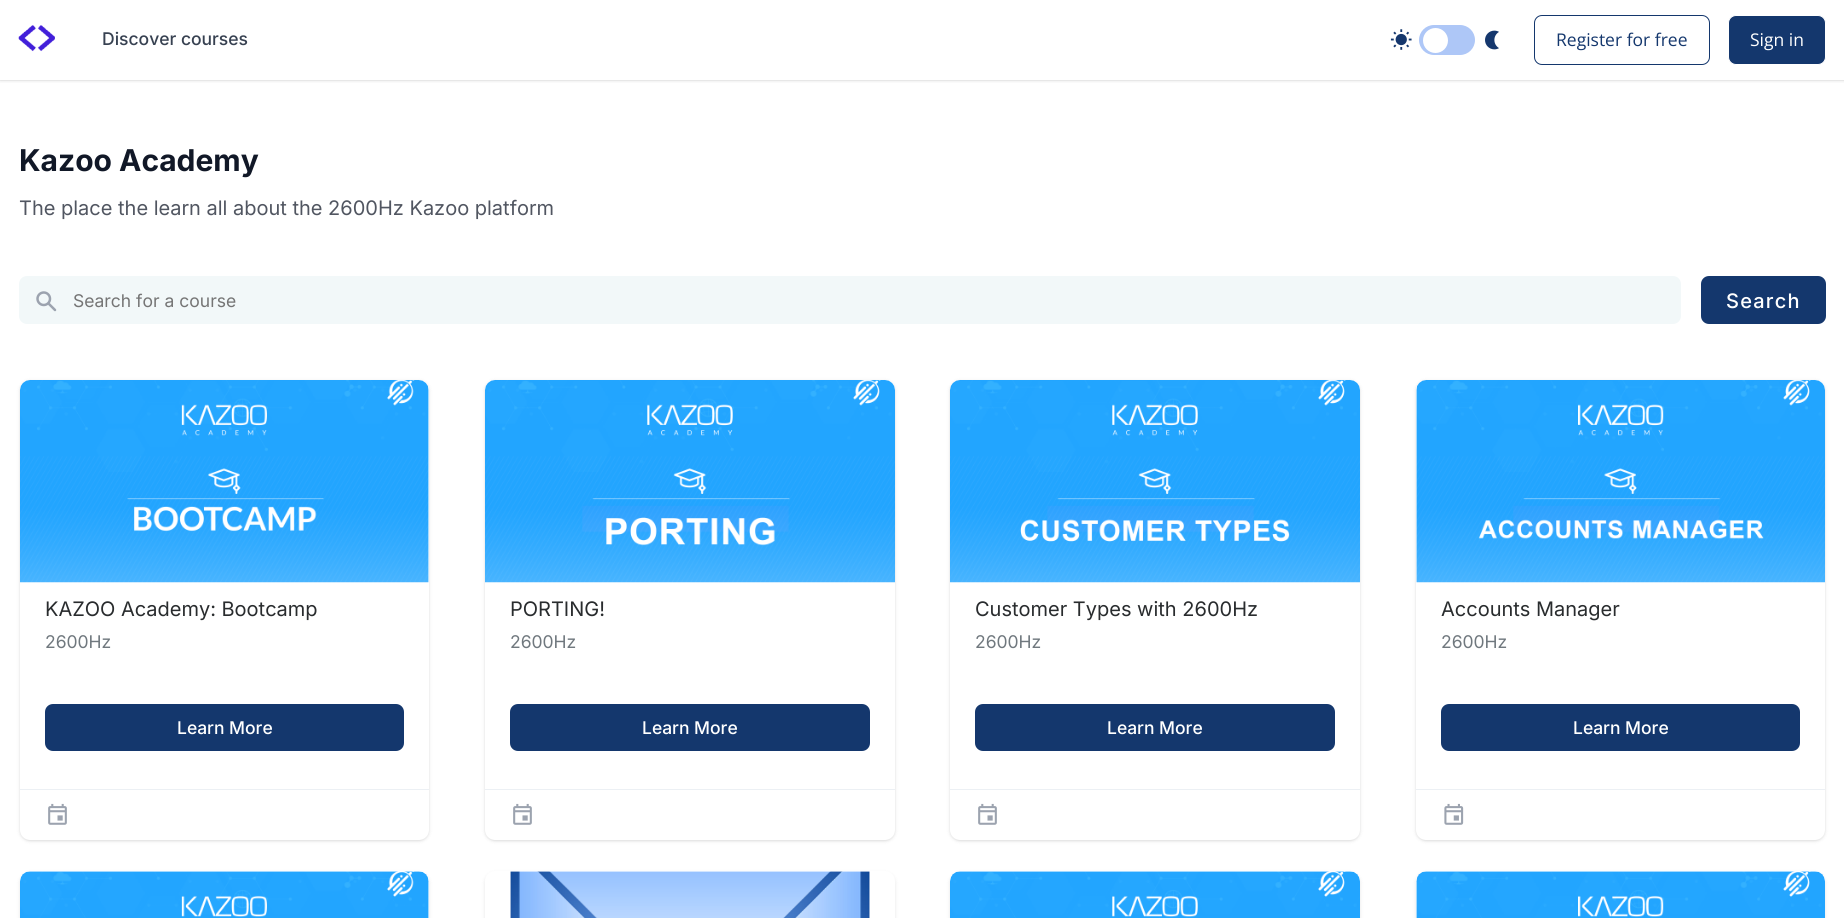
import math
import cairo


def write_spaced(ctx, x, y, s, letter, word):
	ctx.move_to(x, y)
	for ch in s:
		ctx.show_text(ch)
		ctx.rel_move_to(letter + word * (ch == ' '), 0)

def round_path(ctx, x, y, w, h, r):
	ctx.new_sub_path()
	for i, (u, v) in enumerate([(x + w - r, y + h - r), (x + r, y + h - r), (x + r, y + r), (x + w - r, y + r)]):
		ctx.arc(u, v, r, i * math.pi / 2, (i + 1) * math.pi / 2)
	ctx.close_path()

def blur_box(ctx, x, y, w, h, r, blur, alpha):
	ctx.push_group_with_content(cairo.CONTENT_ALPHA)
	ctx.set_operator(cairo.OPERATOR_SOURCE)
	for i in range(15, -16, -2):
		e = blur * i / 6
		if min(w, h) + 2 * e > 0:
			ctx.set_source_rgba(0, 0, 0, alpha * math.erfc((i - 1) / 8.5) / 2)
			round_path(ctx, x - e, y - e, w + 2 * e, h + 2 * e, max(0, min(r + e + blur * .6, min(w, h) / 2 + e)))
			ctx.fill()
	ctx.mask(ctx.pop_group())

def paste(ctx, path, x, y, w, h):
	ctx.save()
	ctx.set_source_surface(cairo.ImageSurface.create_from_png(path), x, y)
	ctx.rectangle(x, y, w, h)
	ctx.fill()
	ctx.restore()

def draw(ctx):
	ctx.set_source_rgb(1, 1, 1)
	ctx.paint()
	ctx.save()
	ctx.rectangle(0, 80, 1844, 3)
	ctx.clip()
	ctx.set_source_rgb(0, 0, 0)
	blur_box(ctx, 0, 1, 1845, 80, 0, 2, 0.1)
	ctx.restore()
	ctx.save()
	ctx.rectangle(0, 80, 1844, 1)
	ctx.clip()
	ctx.set_source_rgb(0, 0, 0)
	blur_box(ctx, 0, 1, 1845, 80, 0, 1, 0.06)
	ctx.restore()
	paste(ctx, 'media/1.png', 18, 25, 37, 27)
	ctx.select_font_face('Inter Medium')
	ctx.set_font_size(17.5)
	ctx.set_source_rgb(0.216, 0.255, 0.318)
	ctx.move_to(102, 45)
	ctx.show_text('Discover courses')
	paste(ctx, 'media/2.png', 1390, 29, 22, 21)
	ctx.set_source_rgb(0.682, 0.78, 0.965)
	round_path(ctx, 1419, 25, 56, 30, 15)
	ctx.fill()
	ctx.set_source_rgb(1, 1, 1)
	ctx.arc(1435.5, 40.5, 12.5, 0, 2 * math.pi)
	ctx.fill()
	paste(ctx, 'media/3.png', 1485, 30, 14, 20)
	round_path(ctx, 1534.5, 15.5, 175, 49, 7.5)
	ctx.set_source_rgb(0.082, 0.216, 0.427)
	ctx.set_line_width(1)
	ctx.stroke()
	ctx.select_font_face('Open Sans')
	ctx.move_to(1556, 46)
	ctx.show_text('Register for free')
	round_path(ctx, 1728.5, 15.5, 97, 49, 7.5)
	ctx.fill_preserve()
	ctx.set_source_rgb(1, 1, 1)
	ctx.stroke()
	ctx.move_to(1750, 46)
	ctx.show_text('Sign in')
	ctx.select_font_face('Inter', cairo.FONT_SLANT_NORMAL, cairo.FONT_WEIGHT_BOLD)
	ctx.set_font_size(30)
	ctx.set_source_rgb(0.067, 0.094, 0.153)
	ctx.move_to(19, 171)
	ctx.show_text('Kazoo Academy')
	ctx.select_font_face('Inter')
	ctx.set_font_size(20)
	ctx.set_source_rgb(0.318, 0.337, 0.38)
	ctx.move_to(19, 215)
	ctx.show_text('The place the learn all about the 2600Hz Kazoo platform')
	ctx.set_source_rgb(0.949, 0.969, 0.973)
	round_path(ctx, 19, 276, 1662, 48, 8)
	ctx.fill()
	paste(ctx, 'media/4.png', 36, 291, 21, 21)
	ctx.set_font_size(17.5)
	ctx.set_source_rgb(0.459, 0.459, 0.459)
	ctx.move_to(73, 307)
	ctx.show_text('Search for a course')
	ctx.set_source_rgb(0.082, 0.216, 0.427)
	round_path(ctx, 1701, 276, 125, 48, 8)
	ctx.fill()
	ctx.select_font_face('Inter Medium')
	ctx.set_font_size(20)
	ctx.set_source_rgb(1, 1, 1)
	write_spaced(ctx, 1726, 308, 'Search', 1.25, 0)
	ctx.set_source_rgb(0, 0, 0)
	blur_box(ctx, 20, 381, 409, 460, 10, 2, 0.1)
	blur_box(ctx, 20, 381, 409, 460, 10, 1, 0.06)
	ctx.set_source_rgb(1, 1, 1)
	round_path(ctx, 20, 380, 409, 460, 10)
	ctx.fill()
	paste(ctx, 'media/5.png', 20, 380, 409, 203)
	ctx.select_font_face('Inter')
	ctx.set_source_rgb(0.161, 0.173, 0.18)
	ctx.move_to(45, 616)
	ctx.show_text('KAZOO Academy: Bootcamp')
	ctx.set_font_size(17.5)
	ctx.set_source_rgb(0.439, 0.471, 0.494)
	ctx.move_to(45, 648)
	ctx.show_text('2600Hz')
	ctx.set_source_rgb(0.082, 0.216, 0.427)
	round_path(ctx, 45, 704, 359, 47, 8)
	ctx.fill()
	ctx.select_font_face('Inter Medium')
	ctx.set_source_rgb(1, 1, 1)
	ctx.move_to(177, 734)
	ctx.show_text('Learn More')
	ctx.set_source_rgb(0.925, 0.941, 0.957)
	ctx.rectangle(20, 789, 409, 1)
	ctx.fill()
	paste(ctx, 'media/6.png', 48, 803, 19, 22)
	ctx.set_source_rgb(0, 0, 0)
	blur_box(ctx, 485, 381, 410, 460, 10, 2, 0.1)
	blur_box(ctx, 485, 381, 410, 460, 10, 1, 0.06)
	ctx.set_source_rgb(1, 1, 1)
	round_path(ctx, 485, 380, 410, 460, 10)
	ctx.fill()
	paste(ctx, 'media/7.png', 485, 380, 410, 203)
	ctx.select_font_face('Inter')
	ctx.set_font_size(20)
	ctx.set_source_rgb(0.161, 0.173, 0.18)
	ctx.move_to(510, 616)
	ctx.show_text('PORTING!')
	ctx.set_font_size(17.5)
	ctx.set_source_rgb(0.439, 0.471, 0.494)
	ctx.move_to(510, 648)
	ctx.show_text('2600Hz')
	ctx.set_source_rgb(0.082, 0.216, 0.427)
	round_path(ctx, 510, 704, 360, 47, 8)
	ctx.fill()
	ctx.select_font_face('Inter Medium')
	ctx.set_source_rgb(1, 1, 1)
	ctx.move_to(642, 734)
	ctx.show_text('Learn More')
	ctx.set_source_rgb(0.925, 0.941, 0.957)
	ctx.rectangle(485, 789, 410, 1)
	ctx.fill()
	paste(ctx, 'media/6.png', 513, 803, 19, 22)
	ctx.set_source_rgb(0, 0, 0)
	blur_box(ctx, 950, 381, 410, 460, 10, 2, 0.1)
	blur_box(ctx, 950, 381, 410, 460, 10, 1, 0.06)
	ctx.set_source_rgb(1, 1, 1)
	round_path(ctx, 950, 380, 410, 460, 10)
	ctx.fill()
	paste(ctx, 'media/8.png', 950, 380, 410, 203)
	ctx.select_font_face('Inter')
	ctx.set_font_size(20)
	ctx.set_source_rgb(0.161, 0.173, 0.18)
	ctx.move_to(975, 616)
	ctx.show_text('Customer Types with 2600Hz')
	ctx.set_font_size(17.5)
	ctx.set_source_rgb(0.439, 0.471, 0.494)
	ctx.move_to(975, 648)
	ctx.show_text('2600Hz')
	ctx.set_source_rgb(0.082, 0.216, 0.427)
	round_path(ctx, 975, 704, 360, 47, 8)
	ctx.fill()
	ctx.select_font_face('Inter Medium')
	ctx.set_source_rgb(1, 1, 1)
	ctx.move_to(1107, 734)
	ctx.show_text('Learn More')
	ctx.set_source_rgb(0.925, 0.941, 0.957)
	ctx.rectangle(950, 789, 410, 1)
	ctx.fill()
	paste(ctx, 'media/6.png', 978, 803, 19, 22)
	ctx.set_source_rgb(0, 0, 0)
	blur_box(ctx, 1416, 381, 409, 460, 10, 2, 0.1)
	blur_box(ctx, 1416, 381, 409, 460, 10, 1, 0.06)
	ctx.set_source_rgb(1, 1, 1)
	round_path(ctx, 1416, 380, 409, 460, 10)
	ctx.fill()
	paste(ctx, 'media/9.png', 1416, 380, 409, 203)
	ctx.select_font_face('Inter')
	ctx.set_font_size(20)
	ctx.set_source_rgb(0.161, 0.173, 0.18)
	ctx.move_to(1441, 616)
	ctx.show_text('Accounts Manager')
	ctx.set_font_size(17.5)
	ctx.set_source_rgb(0.439, 0.471, 0.494)
	ctx.move_to(1441, 648)
	ctx.show_text('2600Hz')
	ctx.set_source_rgb(0.082, 0.216, 0.427)
	round_path(ctx, 1441, 704, 359, 47, 8)
	ctx.fill()
	ctx.select_font_face('Inter Medium')
	ctx.set_source_rgb(1, 1, 1)
	ctx.move_to(1573, 734)
	ctx.show_text('Learn More')
	ctx.set_source_rgb(0.925, 0.941, 0.957)
	ctx.rectangle(1416, 789, 409, 1)
	ctx.fill()
	paste(ctx, 'media/10.png', 1444, 803, 20, 22)
	ctx.set_source_rgb(0, 0, 0)
	blur_box(ctx, 20, 873, 409, 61, 10, 2, 0.1)
	ctx.set_source_rgb(1, 1, 1)
	round_path(ctx, 20, 871, 409, 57, 10)
	ctx.fill()
	paste(ctx, 'media/11.png', 20, 871, 409, 47)
	ctx.set_source_rgb(0, 0, 0)
	blur_box(ctx, 485, 873, 410, 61, 10, 2, 0.1)
	ctx.set_source_rgb(1, 1, 1)
	round_path(ctx, 485, 871, 410, 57, 10)
	ctx.fill()
	paste(ctx, 'media/12.png', 510, 871, 360, 47)
	ctx.set_source_rgb(0, 0, 0)
	blur_box(ctx, 950, 873, 410, 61, 10, 2, 0.1)
	ctx.set_source_rgb(1, 1, 1)
	round_path(ctx, 950, 871, 410, 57, 10)
	ctx.fill()
	paste(ctx, 'media/13.png', 950, 871, 410, 47)
	ctx.set_source_rgb(0, 0, 0)
	blur_box(ctx, 1416, 873, 409, 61, 10, 2, 0.1)
	ctx.set_source_rgb(1, 1, 1)
	round_path(ctx, 1416, 871, 409, 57, 10)
	ctx.fill()
	paste(ctx, 'media/14.png', 1416, 871, 409, 47)


surface = cairo.ImageSurface(cairo.FORMAT_RGB24, 1844, 918)
ctx = cairo.Context(surface)
options = cairo.FontOptions()
options.set_hint_metrics(cairo.HINT_METRICS_OFF)
options.set_hint_style(cairo.HINT_STYLE_NONE)
ctx.set_font_options(options)
ctx.set_miter_limit(4)
draw(ctx)
surface.write_to_png('image.png')
